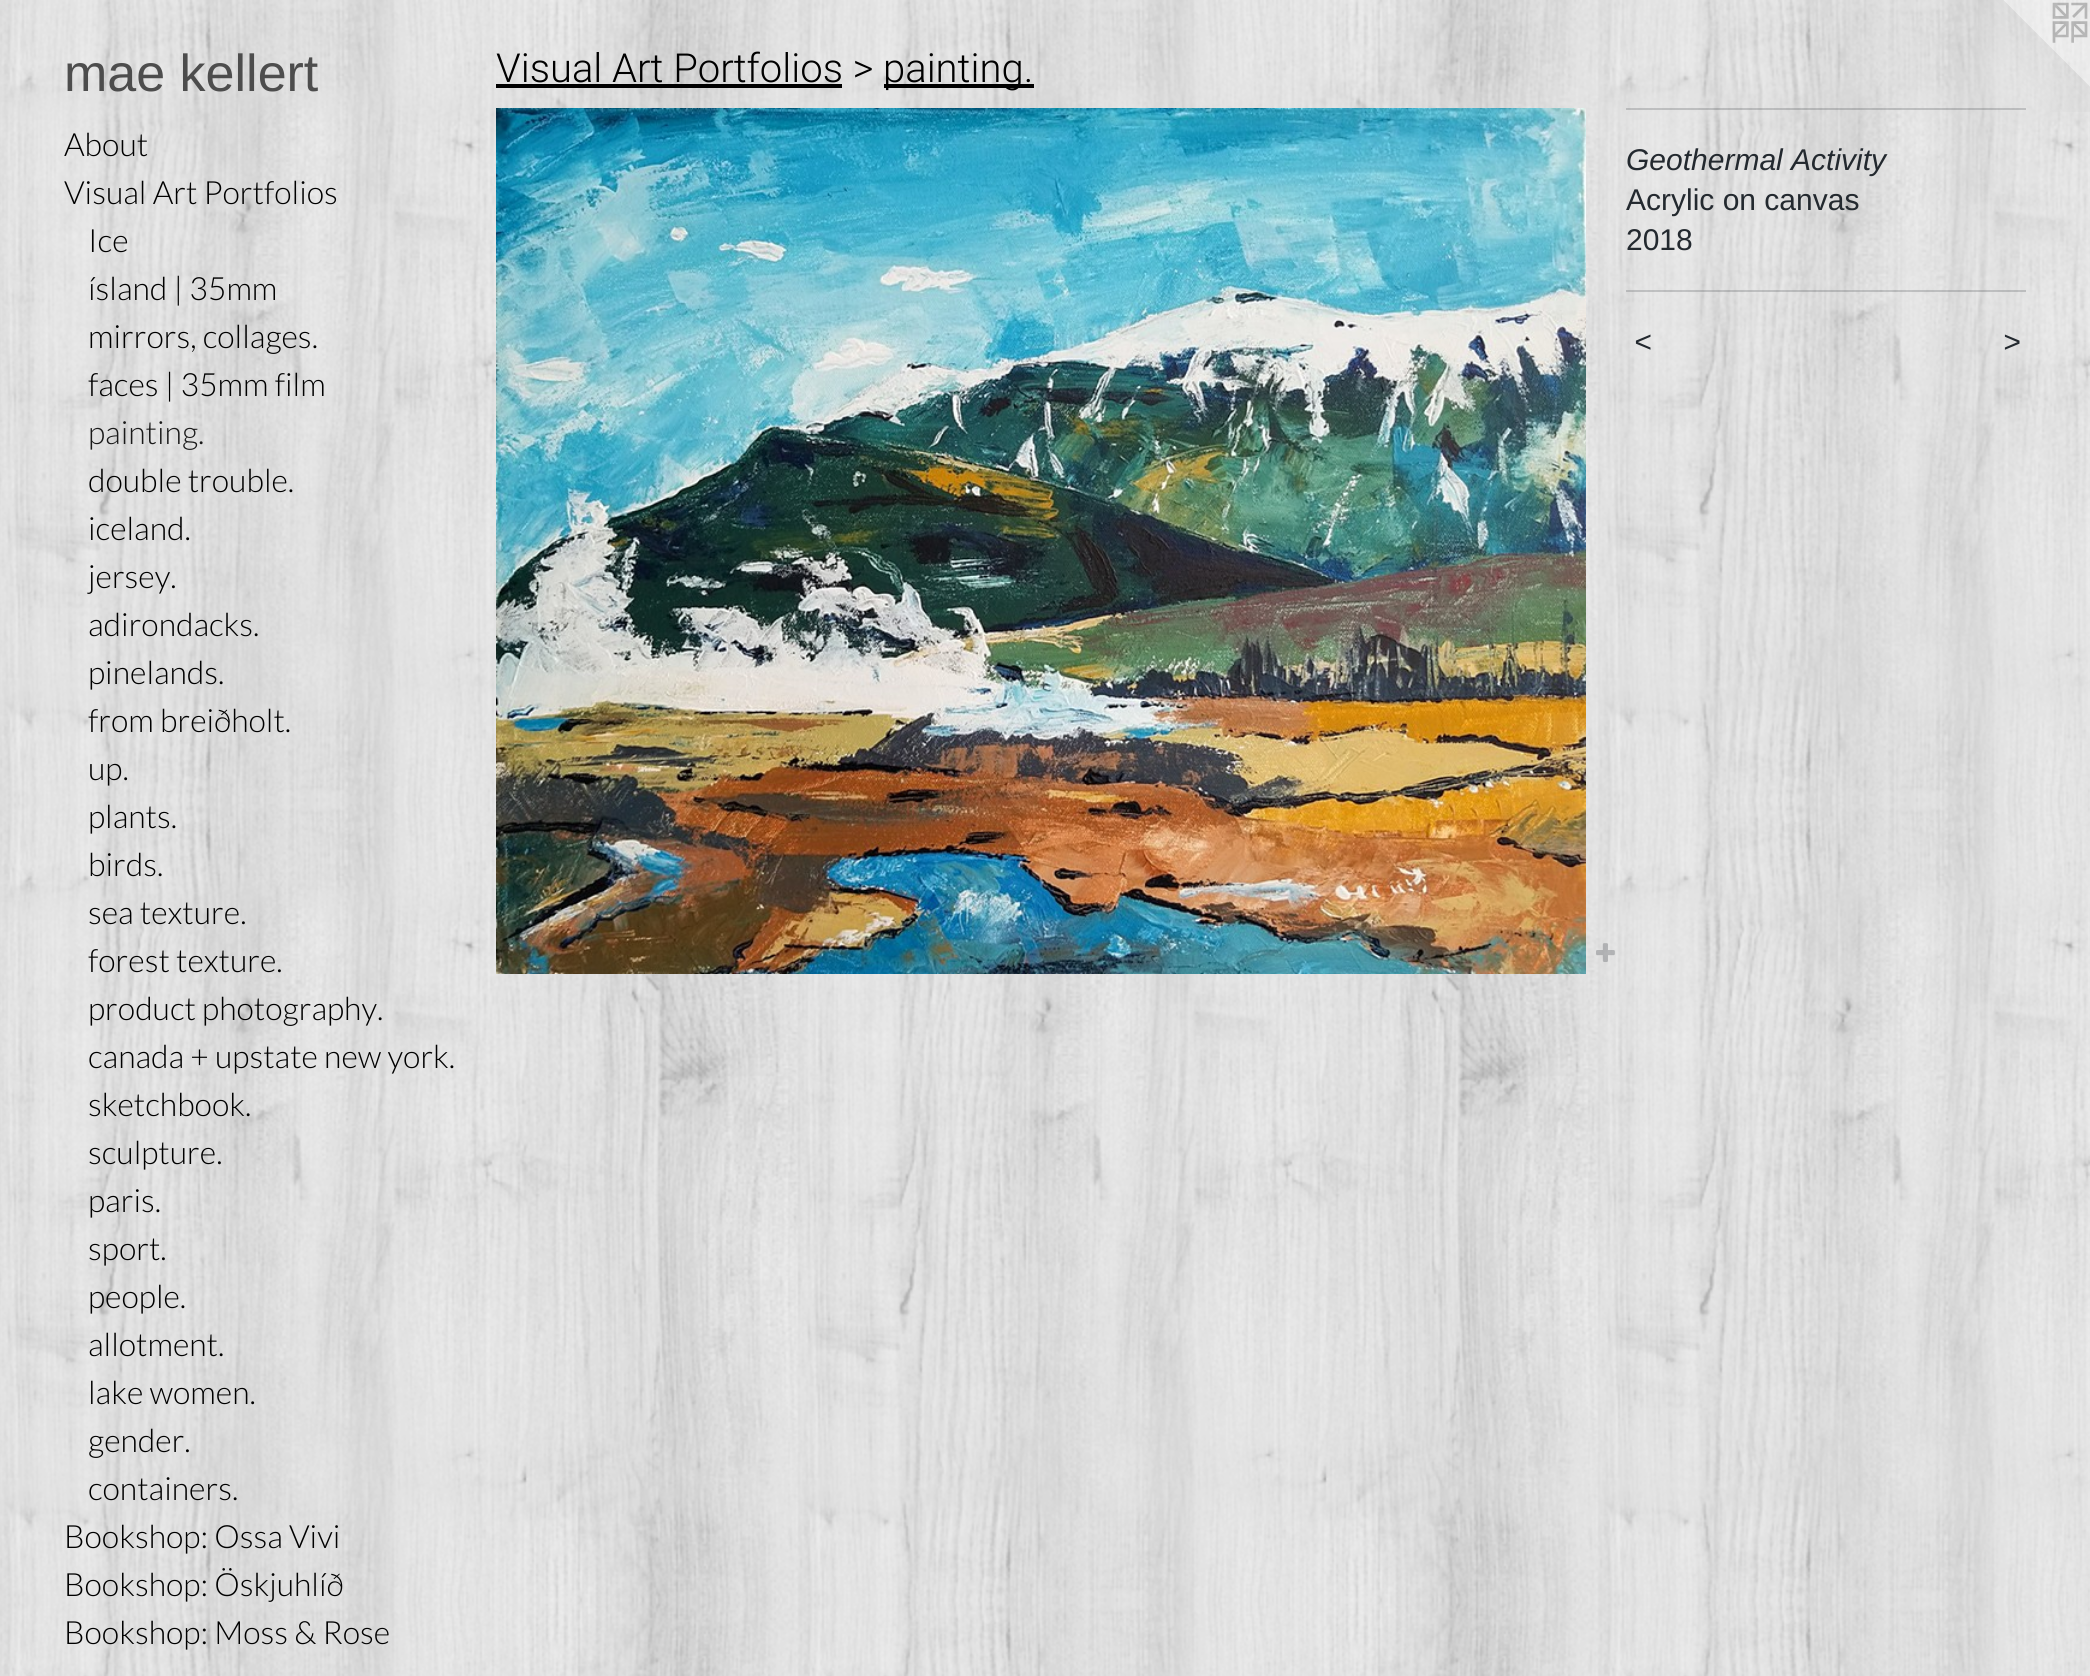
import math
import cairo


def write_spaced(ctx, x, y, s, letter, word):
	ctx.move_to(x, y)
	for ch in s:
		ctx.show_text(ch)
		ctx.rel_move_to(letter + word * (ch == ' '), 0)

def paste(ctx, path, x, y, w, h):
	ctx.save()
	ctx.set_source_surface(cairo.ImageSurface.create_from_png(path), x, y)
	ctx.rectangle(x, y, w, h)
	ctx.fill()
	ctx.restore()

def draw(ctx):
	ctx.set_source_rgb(1, 1, 1)
	ctx.paint()
	paste(ctx, 'media/1.png', 0, 0, 2090, 1676)
	ctx.select_font_face('Arimo')
	ctx.set_font_size(52)
	ctx.set_source_rgb(0.302, 0.302, 0.302)
	ctx.move_to(64, 91)
	ctx.show_text('mae kellert')
	ctx.select_font_face('Lato Light')
	ctx.set_font_size(32)
	ctx.set_source_rgb(0, 0, 0)
	for x, y, s in [
		(64, 156, 'About'),
		(64, 204, 'Visual Art Portfolios'),
		(88, 252, 'Ice'),
		(88, 300, 'ísland | 35mm'),
		(88, 348, 'mirrors, collages.'),
		(88, 396, 'faces | 35mm film'),
	]:
		ctx.move_to(x, y)
		ctx.show_text(s)
	ctx.set_source_rgb(0.102, 0.102, 0.102)
	ctx.move_to(88, 444)
	ctx.show_text('painting.')
	ctx.set_source_rgb(0, 0, 0)
	for x, y, s in [
		(88, 492, 'double trouble.'),
		(88, 540, 'iceland.'),
		(88, 588, 'jersey.'),
		(88, 636, 'adirondacks.'),
		(88, 684, 'pinelands.'),
		(88, 732, 'from breiðholt.'),
		(88, 780, 'up.'),
		(88, 828, 'plants.'),
		(88, 876, 'birds.'),
		(88, 924, 'sea texture.'),
		(88, 972, 'forest texture.'),
		(88, 1020, 'product photography.'),
		(88, 1068, 'canada + upstate new york.'),
		(88, 1116, 'sketchbook.'),
		(88, 1164, 'sculpture.'),
		(88, 1212, 'paris.'),
		(88, 1260, 'sport.'),
		(88, 1308, 'people.'),
		(88, 1356, 'allotment.'),
		(88, 1404, 'lake women.'),
		(88, 1452, 'gender.'),
		(88, 1500, 'containers.'),
		(64, 1548, 'Bookshop: Ossa Vivi'),
		(64, 1596, 'Bookshop: Öskjuhlíð'),
		(64, 1644, 'Bookshop: Moss & Rose'),
	]:
		ctx.move_to(x, y)
		ctx.show_text(s)
	ctx.select_font_face('Roboto Light')
	ctx.set_font_size(40)
	ctx.move_to(496, 82)
	ctx.show_text('Visual Art Portfolios >')
	ctx.rectangle(496, 84, 346, 4)
	ctx.fill()
	ctx.rectangle(884, 84, 150, 4)
	ctx.fill()
	ctx.move_to(883, 82)
	ctx.show_text('painting.')
	paste(ctx, 'media/2.png', 496, 108, 1090, 866)
	paste(ctx, 'media/3.png', 1596, 943, 19, 19)
	paste(ctx, 'media/4.png', 1978, 0, 112, 112)
	ctx.set_source_rgba(0.137, 0.161, 0.184, 0.2)
	ctx.rectangle(1626, 108, 400, 2)
	ctx.fill()
	ctx.select_font_face('Liberation Sans', cairo.FONT_SLANT_ITALIC)
	ctx.set_font_size(30)
	ctx.set_source_rgb(0.137, 0.161, 0.184)
	ctx.move_to(1626, 170)
	ctx.show_text('Geothermal Activity')
	ctx.select_font_face('Liberation Sans')
	ctx.move_to(1626, 210)
	ctx.show_text('Acrylic on canvas')
	ctx.move_to(1626, 250)
	ctx.show_text('2018')
	ctx.set_source_rgba(0.137, 0.161, 0.184, 0.2)
	ctx.rectangle(1626, 290, 400, 2)
	ctx.fill()
	ctx.select_font_face('Liberation Sans', cairo.FONT_SLANT_ITALIC)
	ctx.set_source_rgb(0.137, 0.161, 0.184)
	write_spaced(ctx, 1634, 352, '<', 2, 0)
	write_spaced(ctx, 2003, 352, '>', 2, 0)


surface = cairo.ImageSurface(cairo.FORMAT_RGB24, 2090, 1676)
ctx = cairo.Context(surface)
options = cairo.FontOptions()
options.set_hint_metrics(cairo.HINT_METRICS_OFF)
options.set_hint_style(cairo.HINT_STYLE_NONE)
ctx.set_font_options(options)
ctx.set_miter_limit(4)
draw(ctx)
surface.write_to_png('image.png')
